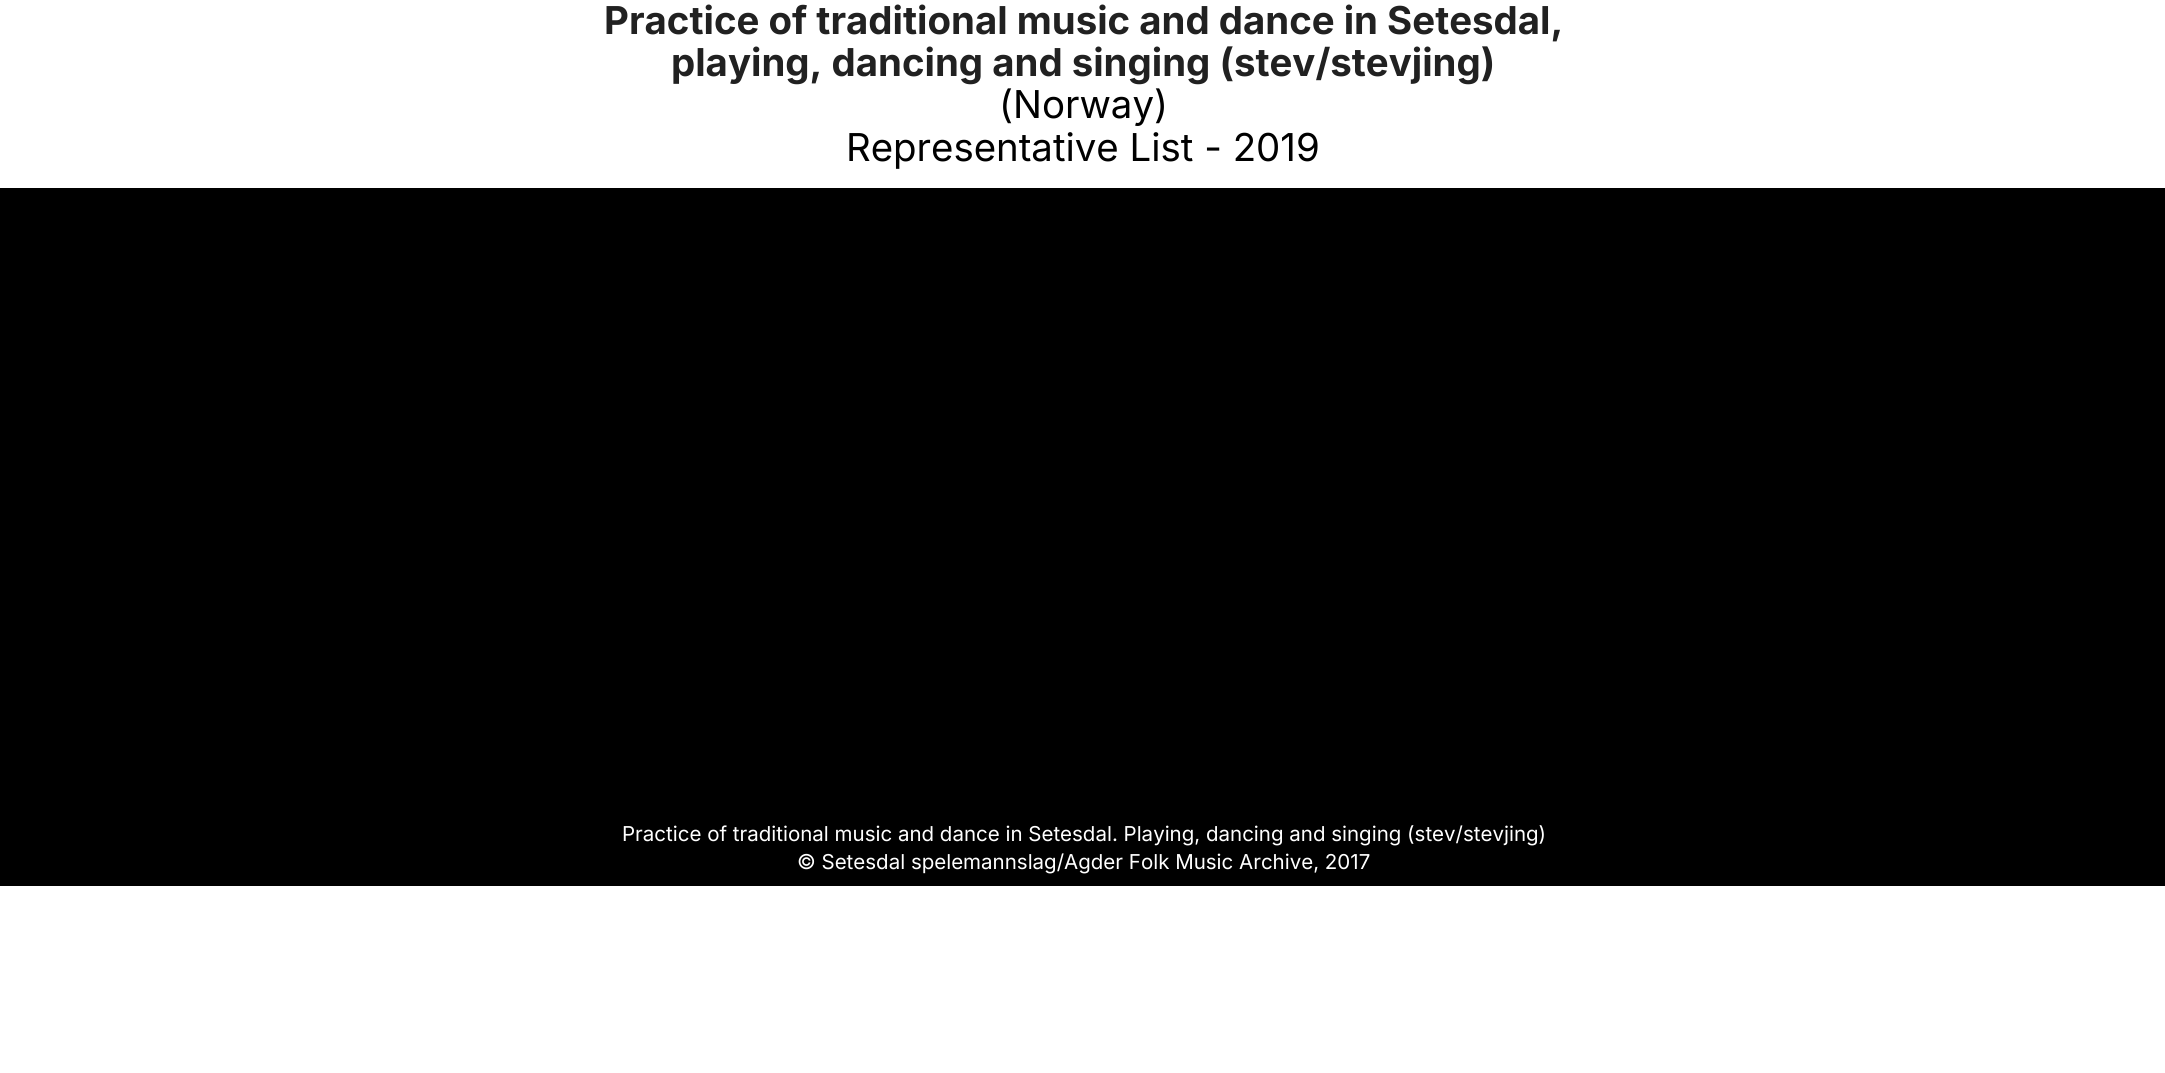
import math
import cairo


def draw(ctx):
	ctx.set_source_rgb(1, 1, 1)
	ctx.paint()
	ctx.select_font_face('Inter', cairo.FONT_SLANT_NORMAL, cairo.FONT_WEIGHT_BOLD)
	ctx.set_font_size(38.4)
	ctx.set_source_rgb(0.129, 0.129, 0.129)
	ctx.move_to(604, 34)
	ctx.show_text('Practice of traditional music and dance in Setesdal,')
	ctx.move_to(671, 76)
	ctx.show_text('playing, dancing and singing (stev/stevjing)')
	ctx.select_font_face('Inter')
	ctx.set_source_rgb(0, 0, 0)
	ctx.move_to(999, 118)
	ctx.show_text('(Norway)')
	ctx.move_to(846, 161)
	ctx.show_text('Representative List - 2019')
	ctx.rectangle(0, 188, 2165, 698)
	ctx.fill()
	ctx.set_font_size(20.5)
	ctx.set_source_rgb(1, 1, 1)
	ctx.move_to(622, 841)
	ctx.show_text('Practice of traditional music and dance in Setesdal. Playing, dancing and singing (stev/stevjing)')
	ctx.move_to(797, 869)
	ctx.show_text('© Setesdal spelemannslag/Agder Folk Music Archive, 2017')


surface = cairo.ImageSurface(cairo.FORMAT_RGB24, 2165, 1073)
ctx = cairo.Context(surface)
options = cairo.FontOptions()
options.set_hint_metrics(cairo.HINT_METRICS_OFF)
options.set_hint_style(cairo.HINT_STYLE_NONE)
ctx.set_font_options(options)
ctx.set_miter_limit(4)
draw(ctx)
surface.write_to_png('image.png')
